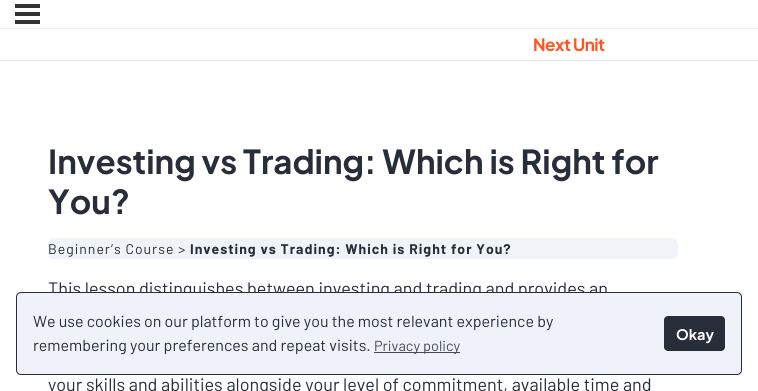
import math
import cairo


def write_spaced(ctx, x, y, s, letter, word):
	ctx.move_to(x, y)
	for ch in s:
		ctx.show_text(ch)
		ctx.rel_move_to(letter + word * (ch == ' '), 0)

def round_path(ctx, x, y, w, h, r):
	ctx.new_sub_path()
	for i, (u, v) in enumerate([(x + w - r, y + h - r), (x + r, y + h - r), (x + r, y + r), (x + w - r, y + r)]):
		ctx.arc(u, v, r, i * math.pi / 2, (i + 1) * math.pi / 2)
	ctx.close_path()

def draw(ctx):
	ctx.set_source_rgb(1, 1, 1)
	ctx.paint()
	ctx.set_source_rgb(0.886, 0.906, 0.929)
	ctx.rectangle(0, 60, 758, 1)
	ctx.fill()
	ctx.set_source_rgb(0.2, 0.2, 0.2)
	ctx.rectangle(15, 4, 25, 4)
	ctx.rectangle(15, 12, 25, 4)
	ctx.rectangle(15, 20, 25, 4)
	ctx.fill()
	ctx.set_source_rgb(0.937, 0.937, 0.937)
	ctx.rectangle(0, 28, 758, 1)
	ctx.fill()
	ctx.select_font_face('Plus Jakarta Sans', cairo.FONT_SLANT_NORMAL, cairo.FONT_WEIGHT_BOLD)
	ctx.set_font_size(17)
	ctx.set_source_rgb(1, 0.337, 0.129)
	write_spaced(ctx, 533, 51, 'Next Unit', -0.5, 0)
	ctx.set_font_size(33)
	ctx.set_source_rgb(0.157, 0.176, 0.227)
	ctx.move_to(48, 174)
	ctx.show_text('Investing vs Trading: Which is Right for')
	ctx.move_to(48, 214)
	ctx.show_text('You?')
	ctx.set_source_rgb(0.941, 0.953, 0.965)
	round_path(ctx, 48, 238, 630, 21, 6)
	ctx.fill()
	ctx.select_font_face('Barlow')
	ctx.set_font_size(14)
	ctx.set_source_rgb(0.157, 0.176, 0.227)
	write_spaced(ctx, 48, 254, 'Beginner’s Course >', 1, 0)
	ctx.select_font_face('Barlow', cairo.FONT_SLANT_NORMAL, cairo.FONT_WEIGHT_BOLD)
	write_spaced(ctx, 190, 254, 'Investing vs Trading: Which is Right for You?', 1, 0)
	ctx.select_font_face('Barlow')
	ctx.set_font_size(18)
	ctx.move_to(48, 295)
	ctx.show_text('This lesson distinguishes between investing and trading and provides an')
	ctx.move_to(48, 391)
	ctx.show_text('your skills and abilities alongside your level of commitment, available time and')
	ctx.set_source_rgb(0.941, 0.949, 0.98)
	round_path(ctx, 16.5, 292.5, 725, 82, 4.5)
	ctx.fill_preserve()
	ctx.set_source_rgb(0.157, 0.176, 0.227)
	ctx.set_line_width(1)
	ctx.stroke()
	ctx.set_font_size(16)
	ctx.move_to(33, 327)
	ctx.show_text('We use cookies on our platform to give you the most relevant experience by')
	ctx.move_to(33, 351)
	ctx.show_text('remembering your preferences and repeat visits.')
	ctx.set_source_rgb(0.275, 0.294, 0.341)
	ctx.rectangle(374, 352, 86, 1)
	ctx.fill()
	ctx.set_font_size(14.5)
	ctx.move_to(374, 351)
	ctx.show_text('Privacy policy')
	ctx.set_source_rgb(0.157, 0.176, 0.227)
	round_path(ctx, 664, 316, 61, 35, 4)
	ctx.fill()
	ctx.select_font_face('Plus Jakarta Sans', cairo.FONT_SLANT_NORMAL, cairo.FONT_WEIGHT_BOLD)
	ctx.set_source_rgb(1, 1, 1)
	ctx.move_to(676, 340)
	ctx.show_text('Okay')


surface = cairo.ImageSurface(cairo.FORMAT_RGB24, 758, 391)
ctx = cairo.Context(surface)
options = cairo.FontOptions()
options.set_hint_metrics(cairo.HINT_METRICS_OFF)
options.set_hint_style(cairo.HINT_STYLE_NONE)
ctx.set_font_options(options)
ctx.set_miter_limit(4)
draw(ctx)
surface.write_to_png('image.png')
